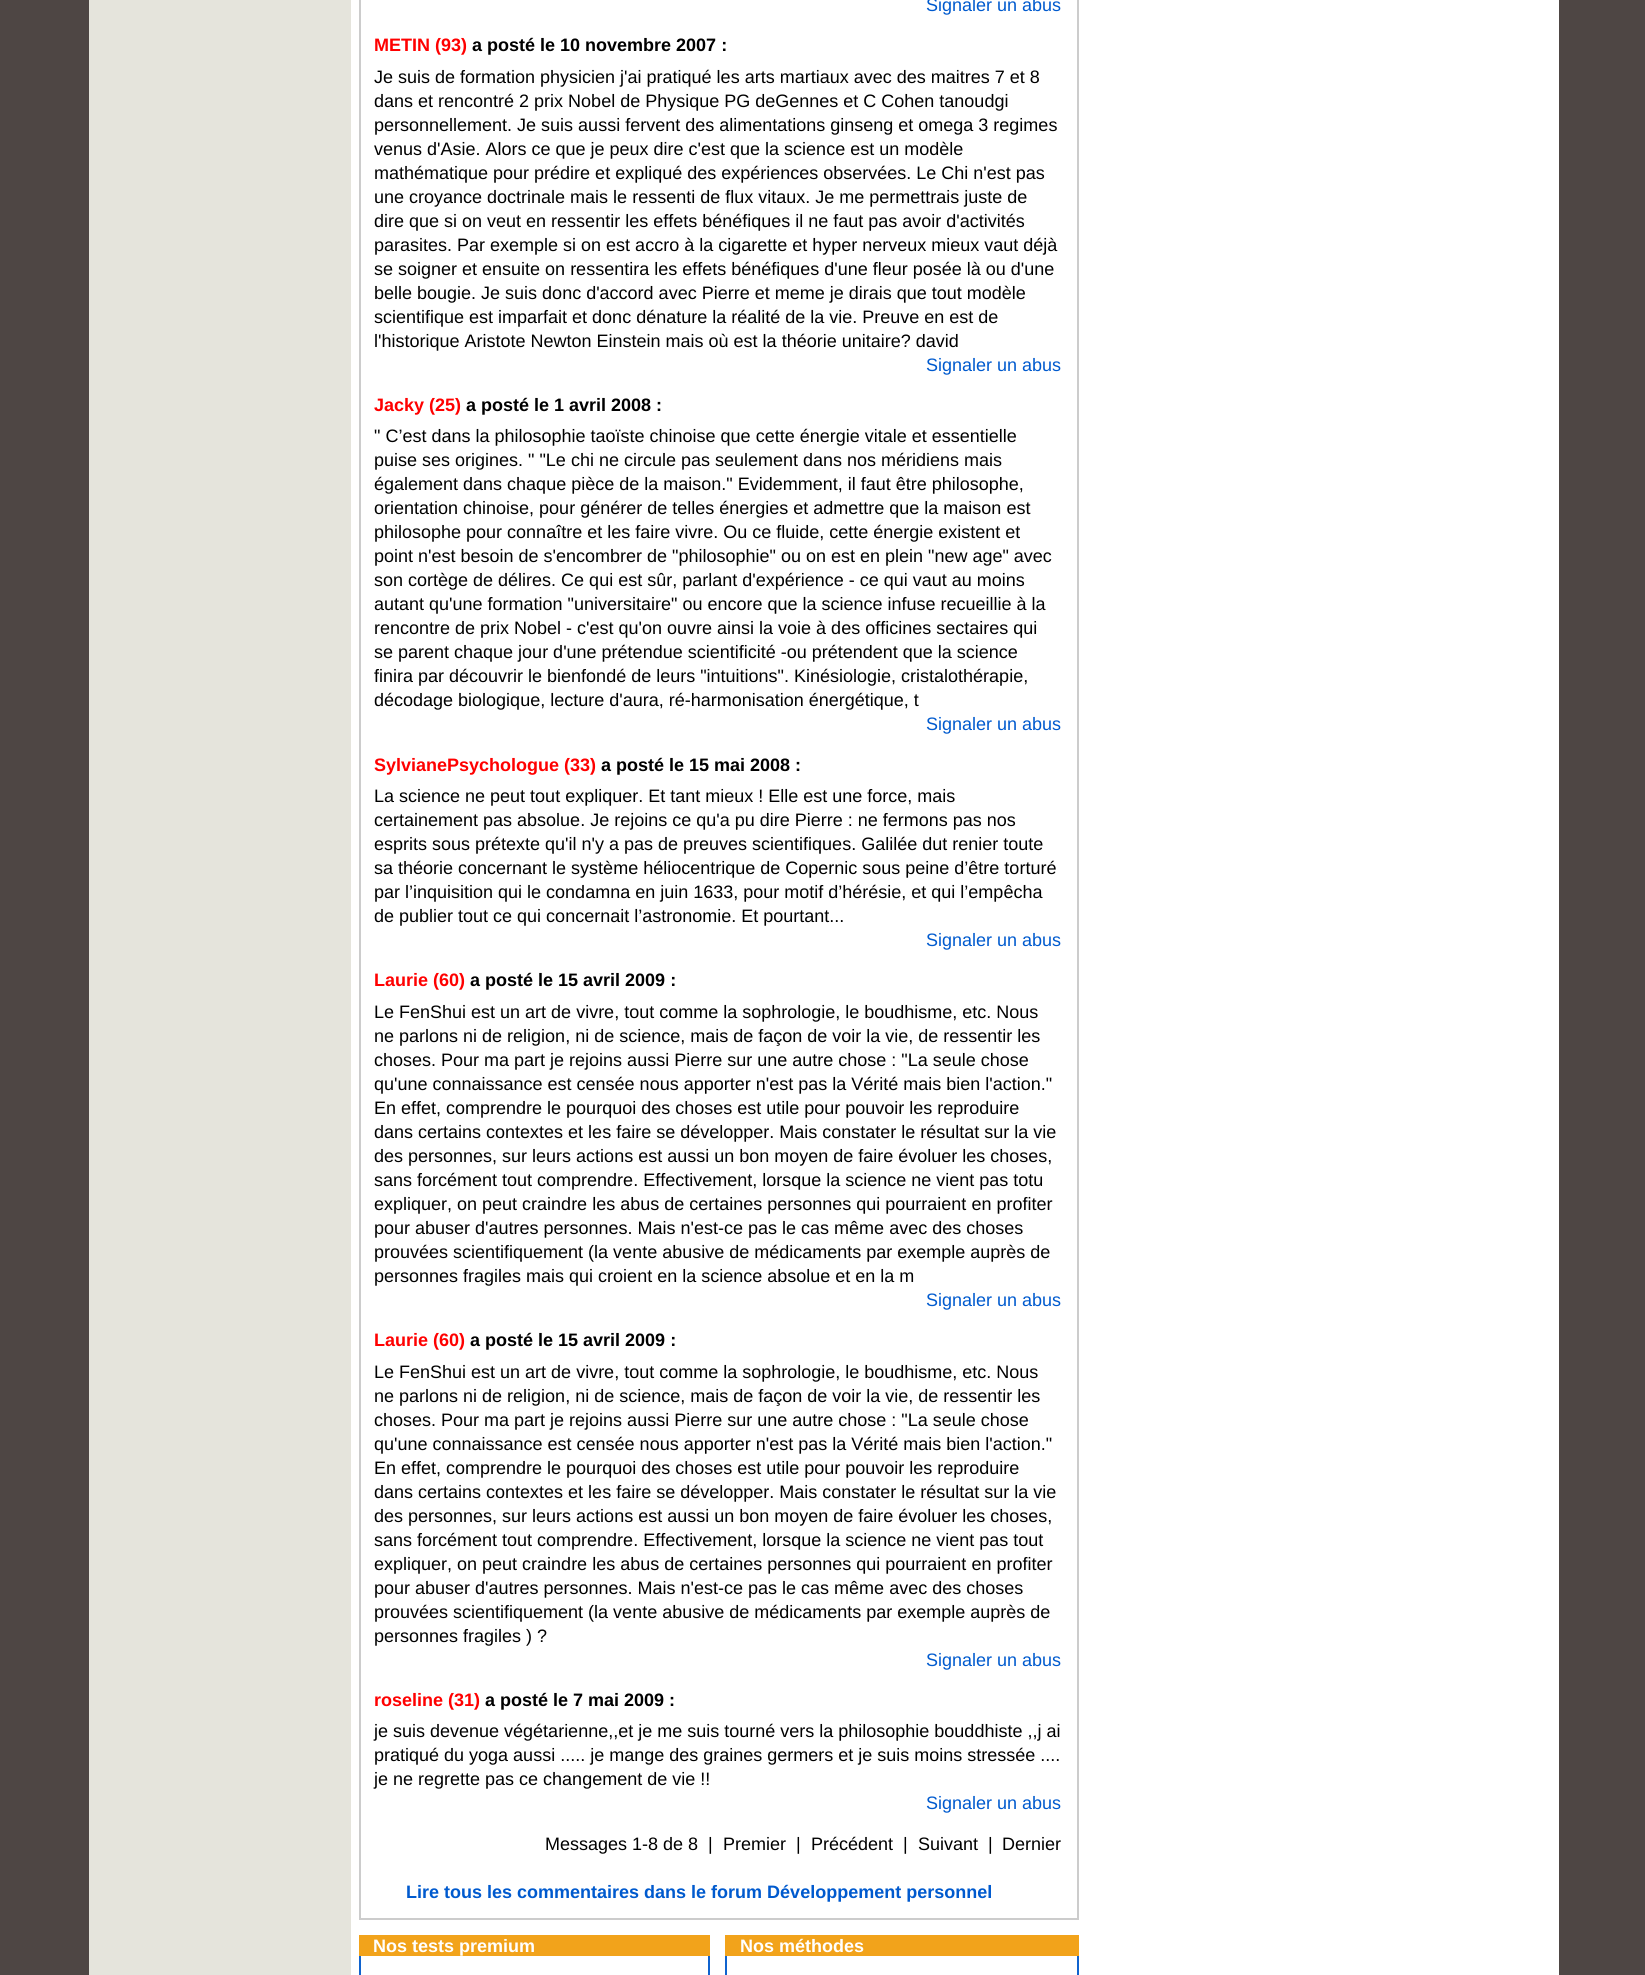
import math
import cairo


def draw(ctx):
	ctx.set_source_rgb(0.306, 0.275, 0.267)
	ctx.paint()
	ctx.set_source_rgb(1, 1, 1)
	ctx.rectangle(351, 0, 1208, 1975)
	ctx.fill()
	ctx.set_source_rgb(0.898, 0.894, 0.863)
	ctx.rectangle(89, 0, 262, 1975)
	ctx.fill()
	ctx.rectangle(360, -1, 718, 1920)
	ctx.set_source_rgb(0.8, 0.8, 0.8)
	ctx.stroke()
	ctx.select_font_face('Liberation Sans')
	ctx.set_font_size(18)
	ctx.set_source_rgb(0, 0.353, 0.808)
	ctx.move_to(926, 11)
	ctx.show_text('Signaler un abus')
	ctx.select_font_face('Liberation Sans', cairo.FONT_SLANT_NORMAL, cairo.FONT_WEIGHT_BOLD)
	ctx.set_source_rgb(1, 0, 0)
	ctx.move_to(374, 51)
	ctx.show_text('METIN (93)')
	ctx.set_source_rgb(0, 0, 0)
	ctx.move_to(472, 51)
	ctx.show_text('a posté le 10 novembre 2007 :')
	ctx.select_font_face('Liberation Sans')
	for x, y, s in [
		(374, 83, 'Je suis de formation physicien j\'ai pratiqué les arts martiaux avec des maitres 7 et 8'),
		(374, 107, 'dans et rencontré 2 prix Nobel de Physique PG deGennes et C Cohen tanoudgi'),
		(374, 131, 'personnellement. Je suis aussi fervent des alimentations ginseng et omega 3 regimes'),
		(374, 155, 'venus d\'Asie. Alors ce que je peux dire c\'est que la science est un modèle'),
		(374, 179, 'mathématique pour prédire et expliqué des expériences observées. Le Chi n\'est pas'),
		(374, 203, 'une croyance doctrinale mais le ressenti de flux vitaux. Je me permettrais juste de'),
		(374, 227, 'dire que si on veut en ressentir les effets bénéfiques il ne faut pas avoir d\'activités'),
		(374, 251, 'parasites. Par exemple si on est accro à la cigarette et hyper nerveux mieux vaut déjà'),
		(374, 275, 'se soigner et ensuite on ressentira les effets bénéfiques d\'une fleur posée là ou d\'une'),
		(374, 299, 'belle bougie. Je suis donc d\'accord avec Pierre et meme je dirais que tout modèle'),
		(374, 323, 'scientifique est imparfait et donc dénature la réalité de la vie. Preuve en est de'),
		(374, 347, 'l\'historique Aristote Newton Einstein mais où est la théorie unitaire? david'),
	]:
		ctx.move_to(x, y)
		ctx.show_text(s)
	ctx.set_source_rgb(0, 0.353, 0.808)
	ctx.move_to(926, 371)
	ctx.show_text('Signaler un abus')
	ctx.select_font_face('Liberation Sans', cairo.FONT_SLANT_NORMAL, cairo.FONT_WEIGHT_BOLD)
	ctx.set_source_rgb(1, 0, 0)
	ctx.move_to(374, 411)
	ctx.show_text('Jacky (25)')
	ctx.set_source_rgb(0, 0, 0)
	ctx.move_to(466, 411)
	ctx.show_text('a posté le 1 avril 2008 :')
	ctx.select_font_face('Liberation Sans')
	for x, y, s in [
		(374, 442, '" C’est dans la philosophie taoïste chinoise que cette énergie vitale et essentielle'),
		(374, 466, 'puise ses origines. " "Le chi ne circule pas seulement dans nos méridiens mais'),
		(374, 490, 'également dans chaque pièce de la maison." Evidemment, il faut être philosophe,'),
		(374, 514, 'orientation chinoise, pour générer de telles énergies et admettre que la maison est'),
		(374, 538, 'philosophe pour connaître et les faire vivre. Ou ce fluide, cette énergie existent et'),
		(374, 562, 'point n\'est besoin de s\'encombrer de "philosophie" ou on est en plein "new age" avec'),
		(374, 586, 'son cortège de délires. Ce qui est sûr, parlant d\'expérience - ce qui vaut au moins'),
		(374, 610, 'autant qu\'une formation "universitaire" ou encore que la science infuse recueillie à la'),
		(374, 634, 'rencontre de prix Nobel - c\'est qu\'on ouvre ainsi la voie à des officines sectaires qui'),
		(374, 658, 'se parent chaque jour d\'une prétendue scientificité -ou prétendent que la science'),
		(374, 682, 'finira par découvrir le bienfondé de leurs "intuitions". Kinésiologie, cristalothérapie,'),
		(374, 706, 'décodage biologique, lecture d\'aura, ré-harmonisation énergétique, t'),
	]:
		ctx.move_to(x, y)
		ctx.show_text(s)
	ctx.set_source_rgb(0, 0.353, 0.808)
	ctx.move_to(926, 730)
	ctx.show_text('Signaler un abus')
	ctx.select_font_face('Liberation Sans', cairo.FONT_SLANT_NORMAL, cairo.FONT_WEIGHT_BOLD)
	ctx.set_source_rgb(1, 0, 0)
	ctx.move_to(374, 771)
	ctx.show_text('SylvianePsychologue (33)')
	ctx.set_source_rgb(0, 0, 0)
	ctx.move_to(601, 771)
	ctx.show_text('a posté le 15 mai 2008 :')
	ctx.select_font_face('Liberation Sans')
	for x, y, s in [
		(374, 802, 'La science ne peut tout expliquer. Et tant mieux ! Elle est une force, mais'),
		(374, 826, 'certainement pas absolue. Je rejoins ce qu\'a pu dire Pierre : ne fermons pas nos'),
		(374, 850, 'esprits sous prétexte qu\'il n\'y a pas de preuves scientifiques. Galilée dut renier toute'),
		(374, 874, 'sa théorie concernant le système héliocentrique de Copernic sous peine d’être torturé'),
		(374, 898, 'par l’inquisition qui le condamna en juin 1633, pour motif d’hérésie, et qui l’empêcha'),
		(374, 922, 'de publier tout ce qui concernait l’astronomie. Et pourtant...'),
	]:
		ctx.move_to(x, y)
		ctx.show_text(s)
	ctx.set_source_rgb(0, 0.353, 0.808)
	ctx.move_to(926, 946)
	ctx.show_text('Signaler un abus')
	ctx.select_font_face('Liberation Sans', cairo.FONT_SLANT_NORMAL, cairo.FONT_WEIGHT_BOLD)
	ctx.set_source_rgb(1, 0, 0)
	ctx.move_to(374, 986)
	ctx.show_text('Laurie (60)')
	ctx.set_source_rgb(0, 0, 0)
	ctx.move_to(470, 986)
	ctx.show_text('a posté le 15 avril 2009 :')
	ctx.select_font_face('Liberation Sans')
	for x, y, s in [
		(374, 1018, 'Le FenShui est un art de vivre, tout comme la sophrologie, le boudhisme, etc. Nous'),
		(374, 1042, 'ne parlons ni de religion, ni de science, mais de façon de voir la vie, de ressentir les'),
		(374, 1066, 'choses. Pour ma part je rejoins aussi Pierre sur une autre chose : "La seule chose'),
		(374, 1090, 'qu\'une connaissance est censée nous apporter n\'est pas la Vérité mais bien l\'action."'),
		(374, 1114, 'En effet, comprendre le pourquoi des choses est utile pour pouvoir les reproduire'),
		(374, 1138, 'dans certains contextes et les faire se développer. Mais constater le résultat sur la vie'),
		(374, 1162, 'des personnes, sur leurs actions est aussi un bon moyen de faire évoluer les choses,'),
		(374, 1186, 'sans forcément tout comprendre. Effectivement, lorsque la science ne vient pas totu'),
		(374, 1210, 'expliquer, on peut craindre les abus de certaines personnes qui pourraient en profiter'),
		(374, 1234, 'pour abuser d\'autres personnes. Mais n\'est-ce pas le cas même avec des choses'),
		(374, 1258, 'prouvées scientifiquement (la vente abusive de médicaments par exemple auprès de'),
		(374, 1282, 'personnes fragiles mais qui croient en la science absolue et en la m'),
	]:
		ctx.move_to(x, y)
		ctx.show_text(s)
	ctx.set_source_rgb(0, 0.353, 0.808)
	ctx.move_to(926, 1306)
	ctx.show_text('Signaler un abus')
	ctx.select_font_face('Liberation Sans', cairo.FONT_SLANT_NORMAL, cairo.FONT_WEIGHT_BOLD)
	ctx.set_source_rgb(1, 0, 0)
	ctx.move_to(374, 1346)
	ctx.show_text('Laurie (60)')
	ctx.set_source_rgb(0, 0, 0)
	ctx.move_to(470, 1346)
	ctx.show_text('a posté le 15 avril 2009 :')
	ctx.select_font_face('Liberation Sans')
	for x, y, s in [
		(374, 1378, 'Le FenShui est un art de vivre, tout comme la sophrologie, le boudhisme, etc. Nous'),
		(374, 1402, 'ne parlons ni de religion, ni de science, mais de façon de voir la vie, de ressentir les'),
		(374, 1426, 'choses. Pour ma part je rejoins aussi Pierre sur une autre chose : "La seule chose'),
		(374, 1450, 'qu\'une connaissance est censée nous apporter n\'est pas la Vérité mais bien l\'action."'),
		(374, 1474, 'En effet, comprendre le pourquoi des choses est utile pour pouvoir les reproduire'),
		(374, 1498, 'dans certains contextes et les faire se développer. Mais constater le résultat sur la vie'),
		(374, 1522, 'des personnes, sur leurs actions est aussi un bon moyen de faire évoluer les choses,'),
		(374, 1546, 'sans forcément tout comprendre. Effectivement, lorsque la science ne vient pas tout'),
		(374, 1570, 'expliquer, on peut craindre les abus de certaines personnes qui pourraient en profiter'),
		(374, 1594, 'pour abuser d\'autres personnes. Mais n\'est-ce pas le cas même avec des choses'),
		(374, 1618, 'prouvées scientifiquement (la vente abusive de médicaments par exemple auprès de'),
		(374, 1642, 'personnes fragiles ) ?'),
	]:
		ctx.move_to(x, y)
		ctx.show_text(s)
	ctx.set_source_rgb(0, 0.353, 0.808)
	ctx.move_to(926, 1666)
	ctx.show_text('Signaler un abus')
	ctx.select_font_face('Liberation Sans', cairo.FONT_SLANT_NORMAL, cairo.FONT_WEIGHT_BOLD)
	ctx.set_source_rgb(1, 0, 0)
	ctx.move_to(374, 1706)
	ctx.show_text('roseline (31)')
	ctx.set_source_rgb(0, 0, 0)
	ctx.move_to(485, 1706)
	ctx.show_text('a posté le 7 mai 2009 :')
	ctx.select_font_face('Liberation Sans')
	for x, y, s in [
		(374, 1737, 'je suis devenue végétarienne,,et je me suis tourné vers la philosophie bouddhiste ,,j ai'),
		(374, 1761, 'pratiqué du yoga aussi ..... je mange des graines germers et je suis moins stressée ....'),
		(374, 1785, 'je ne regrette pas ce changement de vie !!'),
	]:
		ctx.move_to(x, y)
		ctx.show_text(s)
	ctx.set_source_rgb(0, 0.353, 0.808)
	ctx.move_to(926, 1809)
	ctx.show_text('Signaler un abus')
	ctx.set_source_rgb(0, 0, 0)
	for x, y, s in [
		(545, 1850, 'Messages 1-8 de 8  |'),
		(723, 1850, 'Premier  |'),
		(811, 1850, 'Précédent  |'),
		(918, 1850, 'Suivant  |'),
		(1002, 1850, 'Dernier'),
	]:
		ctx.move_to(x, y)
		ctx.show_text(s)
	ctx.select_font_face('Liberation Sans', cairo.FONT_SLANT_NORMAL, cairo.FONT_WEIGHT_BOLD)
	ctx.set_source_rgb(0, 0.353, 0.808)
	ctx.move_to(406, 1898)
	ctx.show_text('Lire tous les commentaires dans le forum Développement personnel')
	ctx.set_source_rgb(0.949, 0.639, 0.106)
	ctx.rectangle(359, 1935, 351, 21)
	ctx.fill()
	ctx.set_source_rgb(1, 1, 1)
	ctx.move_to(373, 1952)
	ctx.show_text('Nos tests premium')
	ctx.set_source_rgb(0.063, 0.388, 0.808)
	ctx.rectangle(708, 1956, 2, 19)
	ctx.rectangle(359, 1956, 2, 19)
	ctx.fill()
	ctx.set_source_rgb(0.949, 0.639, 0.106)
	ctx.rectangle(725, 1935, 354, 21)
	ctx.fill()
	ctx.set_source_rgb(1, 1, 1)
	ctx.move_to(740, 1952)
	ctx.show_text('Nos méthodes')
	ctx.set_source_rgb(0.063, 0.388, 0.808)
	ctx.rectangle(1077, 1956, 2, 19)
	ctx.fill()
	ctx.rectangle(725, 1956, 2, 19)
	ctx.fill()


surface = cairo.ImageSurface(cairo.FORMAT_RGB24, 1645, 1975)
ctx = cairo.Context(surface)
options = cairo.FontOptions()
options.set_hint_metrics(cairo.HINT_METRICS_OFF)
options.set_hint_style(cairo.HINT_STYLE_NONE)
ctx.set_font_options(options)
ctx.set_miter_limit(4)
draw(ctx)
surface.write_to_png('image.png')
